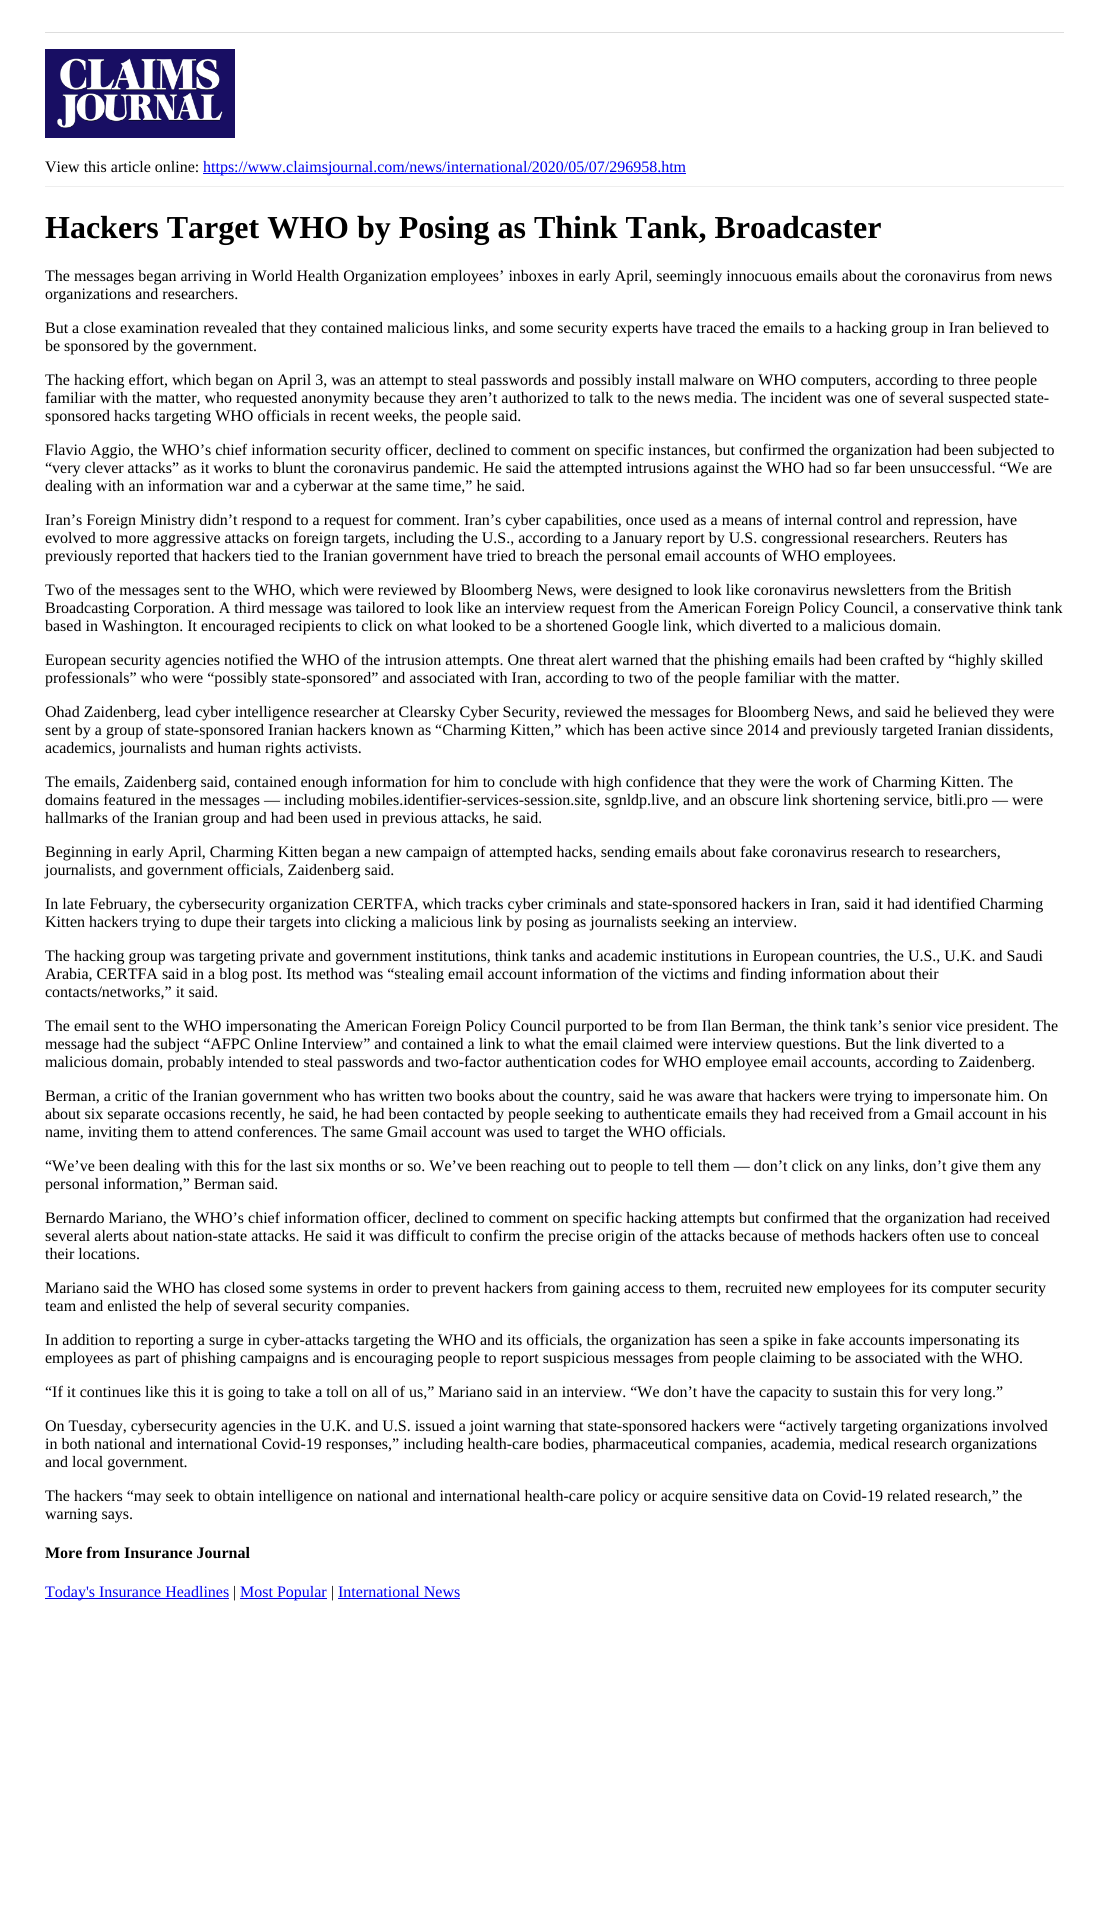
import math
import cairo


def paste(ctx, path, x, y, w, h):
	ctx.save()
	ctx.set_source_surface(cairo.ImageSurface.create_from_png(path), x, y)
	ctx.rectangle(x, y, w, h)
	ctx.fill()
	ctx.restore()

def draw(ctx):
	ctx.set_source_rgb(1, 1, 1)
	ctx.paint()
	ctx.set_source_rgb(0.867, 0.867, 0.867)
	ctx.rectangle(45, 32, 1019, 1)
	ctx.fill()
	paste(ctx, 'media/1.png', 45, 49, 190, 89)
	ctx.set_source_rgb(0.933, 0.933, 0.933)
	ctx.rectangle(45, 186, 1019, 1)
	ctx.fill()
	ctx.select_font_face('Liberation Serif')
	ctx.set_font_size(16)
	ctx.set_source_rgb(0, 0, 0)
	ctx.move_to(45, 172)
	ctx.show_text('View this article online:')
	ctx.set_source_rgb(0, 0, 0.933)
	ctx.rectangle(203, 173, 483, 1)
	ctx.fill()
	ctx.move_to(203, 172)
	ctx.show_text('https://www.claimsjournal.com/news/international/2020/05/07/296958.htm')
	ctx.select_font_face('Liberation Serif', cairo.FONT_SLANT_NORMAL, cairo.FONT_WEIGHT_BOLD)
	ctx.set_font_size(32)
	ctx.set_source_rgb(0, 0, 0)
	ctx.move_to(45, 238)
	ctx.show_text('Hackers Target WHO by Posing as Think Tank, Broadcaster')
	ctx.select_font_face('Liberation Serif')
	ctx.set_font_size(16)
	for x, y, s in [
		(45, 281, 'The messages began arriving in World Health Organization employees’ inboxes in early April, seemingly innocuous emails about the coronavirus from news'),
		(45, 299, 'organizations and researchers.'),
		(45, 333, 'But a close examination revealed that they contained malicious links, and some security experts have traced the emails to a hacking group in Iran believed to'),
		(45, 351, 'be sponsored by the government.'),
		(45, 385, 'The hacking effort, which began on April 3, was an attempt to steal passwords and possibly install malware on WHO computers, according to three people'),
		(45, 403, 'familiar with the matter, who requested anonymity because they aren’t authorized to talk to the news media. The incident was one of several suspected state-'),
		(45, 421, 'sponsored hacks targeting WHO officials in recent weeks, the people said.'),
		(45, 455, 'Flavio Aggio, the WHO’s chief information security officer, declined to comment on specific instances, but confirmed the organization had been subjected to'),
		(45, 473, '“very clever attacks” as it works to blunt the coronavirus pandemic. He said the attempted intrusions against the WHO had so far been unsuccessful. “We are'),
		(45, 491, 'dealing with an information war and a cyberwar at the same time,” he said.'),
		(45, 525, 'Iran’s Foreign Ministry didn’t respond to a request for comment. Iran’s cyber capabilities, once used as a means of internal control and repression, have'),
		(45, 543, 'evolved to more aggressive attacks on foreign targets, including the U.S., according to a January report by U.S. congressional researchers. Reuters has'),
		(45, 561, 'previously reported that hackers tied to the Iranian government have tried to breach the personal email accounts of WHO employees.'),
		(45, 595, 'Two of the messages sent to the WHO, which were reviewed by Bloomberg News, were designed to look like coronavirus newsletters from the British'),
		(45, 613, 'Broadcasting Corporation. A third message was tailored to look like an interview request from the American Foreign Policy Council, a conservative think tank'),
		(45, 631, 'based in Washington. It encouraged recipients to click on what looked to be a shortened Google link, which diverted to a malicious domain.'),
		(45, 665, 'European security agencies notified the WHO of the intrusion attempts. One threat alert warned that the phishing emails had been crafted by “highly skilled'),
		(45, 683, 'professionals” who were “possibly state-sponsored” and associated with Iran, according to two of the people familiar with the matter.'),
		(45, 717, 'Ohad Zaidenberg, lead cyber intelligence researcher at Clearsky Cyber Security, reviewed the messages for Bloomberg News, and said he believed they were'),
		(45, 735, 'sent by a group of state-sponsored Iranian hackers known as “Charming Kitten,” which has been active since 2014 and previously targeted Iranian dissidents,'),
		(45, 753, 'academics, journalists and human rights activists.'),
		(45, 787, 'The emails, Zaidenberg said, contained enough information for him to conclude with high confidence that they were the work of Charming Kitten. The'),
		(45, 805, 'domains featured in the messages — including mobiles.identifier-services-session.site, sgnldp.live, and an obscure link shortening service, bitli.pro — were'),
		(45, 823, 'hallmarks of the Iranian group and had been used in previous attacks, he said.'),
		(45, 857, 'Beginning in early April, Charming Kitten began a new campaign of attempted hacks, sending emails about fake coronavirus research to researchers,'),
		(45, 875, 'journalists, and government officials, Zaidenberg said.'),
		(45, 909, 'In late February, the cybersecurity organization CERTFA, which tracks cyber criminals and state-sponsored hackers in Iran, said it had identified Charming'),
		(45, 927, 'Kitten hackers trying to dupe their targets into clicking a malicious link by posing as journalists seeking an interview.'),
		(45, 961, 'The hacking group was targeting private and government institutions, think tanks and academic institutions in European countries, the U.S., U.K. and Saudi'),
		(45, 979, 'Arabia, CERTFA said in a blog post. Its method was “stealing email account information of the victims and finding information about their'),
		(45, 997, 'contacts/networks,” it said.'),
		(45, 1031, 'The email sent to the WHO impersonating the American Foreign Policy Council purported to be from Ilan Berman, the think tank’s senior vice president. The'),
		(45, 1049, 'message had the subject “AFPC Online Interview” and contained a link to what the email claimed were interview questions. But the link diverted to a'),
		(45, 1067, 'malicious domain, probably intended to steal passwords and two-factor authentication codes for WHO employee email accounts, according to Zaidenberg.'),
		(45, 1101, 'Berman, a critic of the Iranian government who has written two books about the country, said he was aware that hackers were trying to impersonate him. On'),
		(45, 1119, 'about six separate occasions recently, he said, he had been contacted by people seeking to authenticate emails they had received from a Gmail account in his'),
		(45, 1137, 'name, inviting them to attend conferences. The same Gmail account was used to target the WHO officials.'),
		(45, 1171, '“We’ve been dealing with this for the last six months or so. We’ve been reaching out to people to tell them — don’t click on any links, don’t give them any'),
		(45, 1189, 'personal information,” Berman said.'),
		(45, 1223, 'Bernardo Mariano, the WHO’s chief information officer, declined to comment on specific hacking attempts but confirmed that the organization had received'),
		(45, 1241, 'several alerts about nation-state attacks. He said it was difficult to confirm the precise origin of the attacks because of methods hackers often use to conceal'),
		(45, 1259, 'their locations.'),
		(45, 1293, 'Mariano said the WHO has closed some systems in order to prevent hackers from gaining access to them, recruited new employees for its computer security'),
		(45, 1311, 'team and enlisted the help of several security companies.'),
		(45, 1345, 'In addition to reporting a surge in cyber-attacks targeting the WHO and its officials, the organization has seen a spike in fake accounts impersonating its'),
		(45, 1363, 'employees as part of phishing campaigns and is encouraging people to report suspicious messages from people claiming to be associated with the WHO.'),
		(45, 1397, '“If it continues like this it is going to take a toll on all of us,” Mariano said in an interview. “We don’t have the capacity to sustain this for very long.”'),
		(45, 1431, 'On Tuesday, cybersecurity agencies in the U.K. and U.S. issued a joint warning that state-sponsored hackers were “actively targeting organizations involved'),
		(45, 1449, 'in both national and international Covid-19 responses,” including health-care bodies, pharmaceutical companies, academia, medical research organizations'),
		(45, 1467, 'and local government.'),
		(45, 1501, 'The hackers “may seek to obtain intelligence on national and international health-care policy or acquire sensitive data on Covid-19 related research,” the'),
		(45, 1519, 'warning says.'),
	]:
		ctx.move_to(x, y)
		ctx.show_text(s)
	ctx.select_font_face('Liberation Serif', cairo.FONT_SLANT_NORMAL, cairo.FONT_WEIGHT_BOLD)
	ctx.move_to(45, 1558)
	ctx.show_text('More from Insurance Journal')
	ctx.set_source_rgb(0, 0, 0.933)
	ctx.rectangle(45, 1598, 184, 1)
	ctx.fill()
	ctx.select_font_face('Liberation Serif')
	ctx.move_to(45, 1597)
	ctx.show_text('Today\'s Insurance Headlines')
	ctx.set_source_rgb(0, 0, 0)
	ctx.move_to(233, 1597)
	ctx.show_text('|')
	ctx.set_source_rgb(0, 0, 0.933)
	ctx.rectangle(240, 1598, 87, 1)
	ctx.fill()
	ctx.move_to(240, 1597)
	ctx.show_text('Most Popular')
	ctx.set_source_rgb(0, 0, 0)
	ctx.move_to(331, 1597)
	ctx.show_text('|')
	ctx.set_source_rgb(0, 0, 0.933)
	ctx.move_to(338, 1597)
	ctx.show_text('International News')
	ctx.rectangle(338, 1598, 122, 1)
	ctx.fill()


surface = cairo.ImageSurface(cairo.FORMAT_RGB24, 1109, 1917)
ctx = cairo.Context(surface)
options = cairo.FontOptions()
options.set_hint_metrics(cairo.HINT_METRICS_OFF)
options.set_hint_style(cairo.HINT_STYLE_NONE)
ctx.set_font_options(options)
ctx.set_miter_limit(4)
draw(ctx)
surface.write_to_png('image.png')
